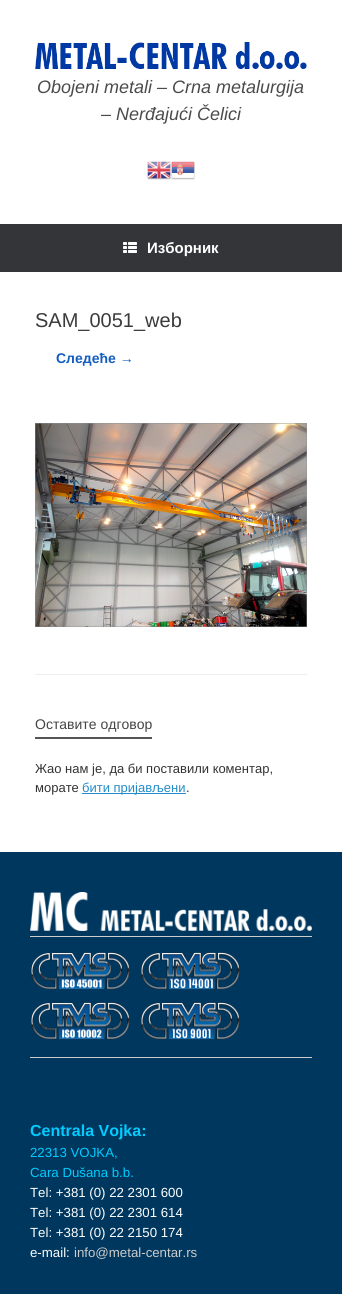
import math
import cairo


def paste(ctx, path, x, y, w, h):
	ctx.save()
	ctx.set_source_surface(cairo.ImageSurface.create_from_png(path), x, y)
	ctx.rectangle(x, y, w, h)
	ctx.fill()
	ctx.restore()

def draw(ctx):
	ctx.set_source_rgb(0, 0.216, 0.369)
	ctx.paint()
	ctx.set_source_rgb(1, 1, 1)
	ctx.rectangle(0, 0, 342, 224)
	ctx.fill()
	paste(ctx, 'media/1.png', 35, 42, 272, 27)
	ctx.select_font_face('Liberation Sans', cairo.FONT_SLANT_ITALIC)
	ctx.set_font_size(18)
	ctx.set_source_rgb(0.294, 0.294, 0.294)
	ctx.move_to(37, 93)
	ctx.show_text('Obojeni metali – Crna metalurgija')
	ctx.move_to(101, 120)
	ctx.show_text('– Nerđajući Čelici')
	paste(ctx, 'media/2.png', 147, 161, 24, 19)
	paste(ctx, 'media/3.png', 171, 161, 24, 19)
	ctx.set_source_rgb(0.204, 0.208, 0.22)
	ctx.rectangle(0, 224, 342, 48)
	ctx.fill()
	paste(ctx, 'media/4.png', 123, 242, 14, 11)
	ctx.select_font_face('Liberation Sans', cairo.FONT_SLANT_NORMAL, cairo.FONT_WEIGHT_BOLD)
	ctx.set_font_size(15)
	ctx.set_source_rgb(1, 1, 1)
	ctx.move_to(147, 253)
	ctx.show_text('Изборник')
	ctx.rectangle(0, 272, 342, 580)
	ctx.fill()
	ctx.set_source_rgb(0.933, 0.933, 0.933)
	ctx.rectangle(35, 674, 272, 1)
	ctx.fill()
	ctx.select_font_face('Liberation Sans')
	ctx.set_font_size(20)
	ctx.set_source_rgb(0.231, 0.231, 0.231)
	ctx.move_to(35, 327)
	ctx.show_text('SAM_0051_web')
	ctx.select_font_face('Liberation Sans', cairo.FONT_SLANT_NORMAL, cairo.FONT_WEIGHT_BOLD)
	ctx.set_font_size(14)
	ctx.set_source_rgb(0.082, 0.369, 0.761)
	ctx.move_to(56, 363)
	ctx.show_text('Следеће →')
	paste(ctx, 'media/5.png', 35, 423, 272, 204)
	ctx.set_source_rgb(0.333, 0.333, 0.333)
	ctx.rectangle(35, 737, 117, 2)
	ctx.fill()
	ctx.select_font_face('Liberation Sans')
	ctx.set_source_rgb(0.267, 0.267, 0.267)
	ctx.move_to(35, 729)
	ctx.show_text('Оставите одговор')
	ctx.set_font_size(13)
	ctx.set_source_rgb(0.2, 0.2, 0.2)
	ctx.move_to(35, 773)
	ctx.show_text('Жао нам је, да би поставили коментар,')
	ctx.move_to(35, 792)
	ctx.show_text('морате')
	ctx.set_source_rgb(0.141, 0.549, 0.784)
	ctx.rectangle(82, 793, 104, 1)
	ctx.fill()
	ctx.move_to(82, 792)
	ctx.show_text('бити пријављени')
	ctx.set_source_rgb(0.2, 0.2, 0.2)
	ctx.move_to(186, 792)
	ctx.show_text('.')
	paste(ctx, 'media/6.png', 30, 892, 282, 39)
	ctx.set_source_rgb(0.8, 0.8, 0.8)
	ctx.rectangle(30, 936, 282, 1)
	ctx.fill()
	paste(ctx, 'media/7.png', 30, 952, 100, 38)
	paste(ctx, 'media/8.png', 140, 952, 100, 38)
	paste(ctx, 'media/9.png', 30, 1002, 100, 38)
	paste(ctx, 'media/10.png', 140, 1002, 100, 38)
	ctx.rectangle(30, 1057, 282, 1)
	ctx.fill()
	ctx.select_font_face('Liberation Sans', cairo.FONT_SLANT_NORMAL, cairo.FONT_WEIGHT_BOLD)
	ctx.set_font_size(16)
	ctx.set_source_rgb(0, 0.8, 1)
	ctx.move_to(30, 1136)
	ctx.show_text('Centrala Vojka:')
	ctx.select_font_face('Liberation Sans')
	ctx.set_font_size(13.25)
	ctx.move_to(30, 1157)
	ctx.show_text('22313 VOJKA,')
	ctx.move_to(30, 1177)
	ctx.show_text('Cara Dušana b.b.')
	ctx.set_source_rgb(1, 1, 1)
	for x, y, s in [
		(30, 1197, 'Tel: +381 (0) 22 2301 600'),
		(30, 1217, 'Tel: +381 (0) 22 2301 614'),
		(30, 1237, 'Tel: +381 (0) 22 2150 174'),
		(30, 1257, 'e-mail:'),
	]:
		ctx.move_to(x, y)
		ctx.show_text(s)
	ctx.set_source_rgb(0.8, 0.8, 0.8)
	ctx.move_to(74, 1257)
	ctx.show_text('info@metal-centar.rs')


surface = cairo.ImageSurface(cairo.FORMAT_RGB24, 342, 1294)
ctx = cairo.Context(surface)
options = cairo.FontOptions()
options.set_hint_metrics(cairo.HINT_METRICS_OFF)
options.set_hint_style(cairo.HINT_STYLE_NONE)
ctx.set_font_options(options)
ctx.set_miter_limit(4)
draw(ctx)
surface.write_to_png('image.png')
